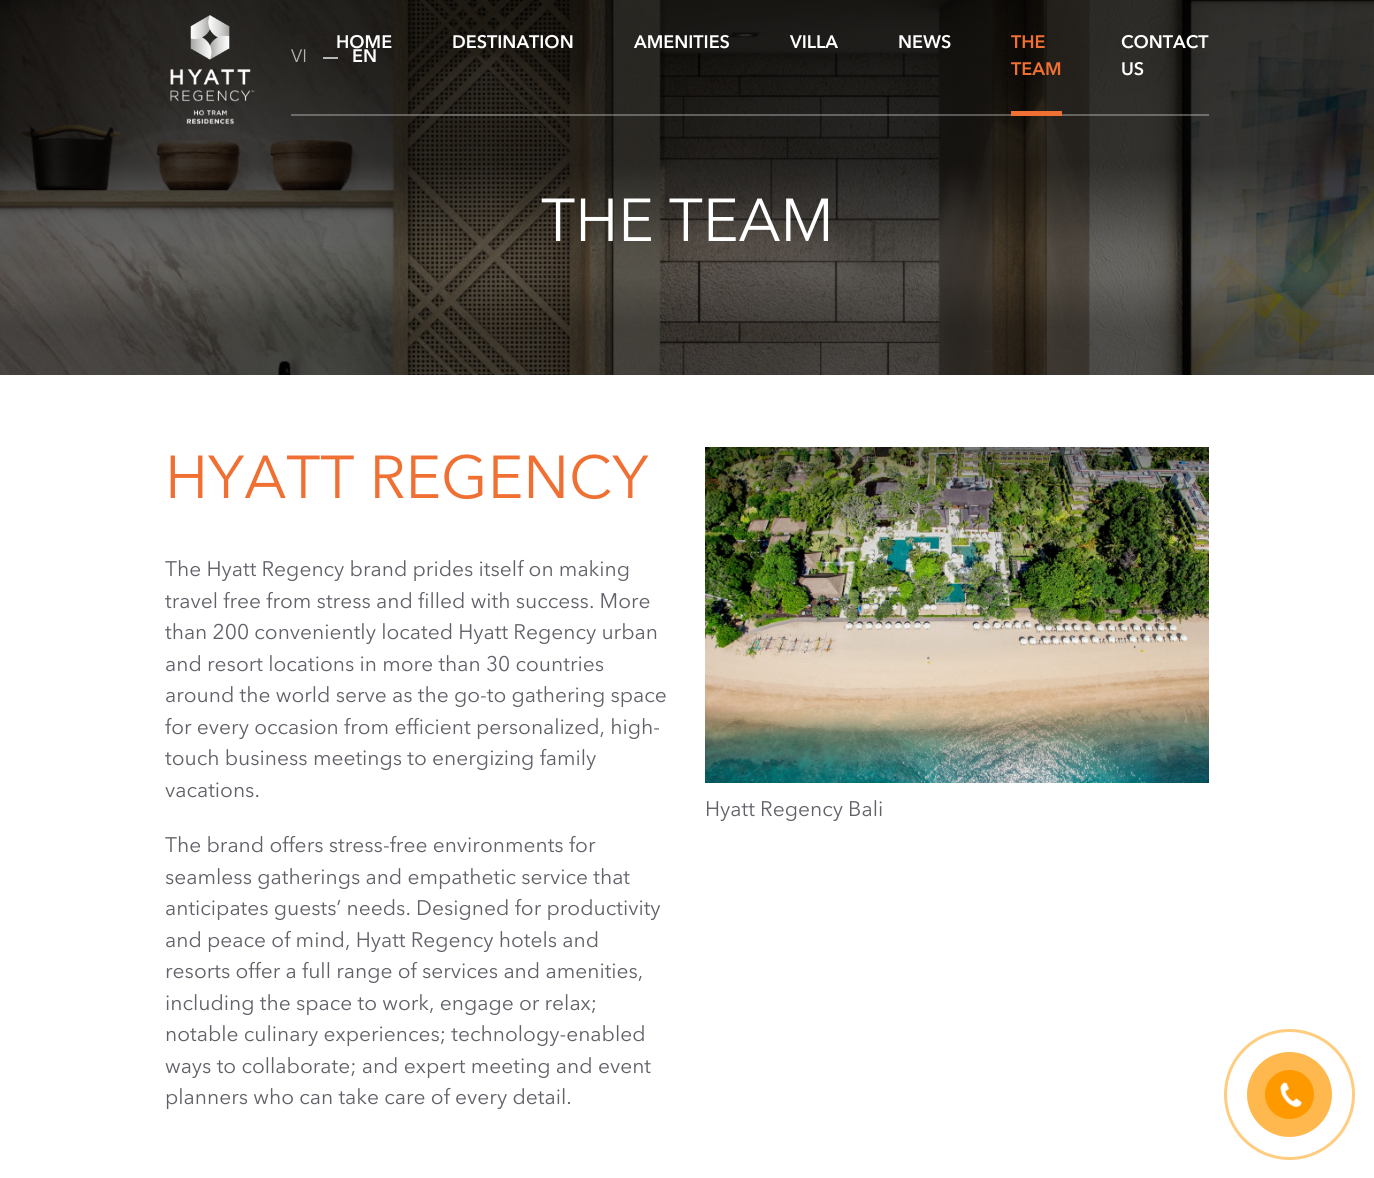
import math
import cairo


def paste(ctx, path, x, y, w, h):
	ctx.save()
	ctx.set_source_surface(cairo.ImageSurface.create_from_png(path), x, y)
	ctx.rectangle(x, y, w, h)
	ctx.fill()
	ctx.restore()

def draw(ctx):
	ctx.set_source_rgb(1, 1, 1)
	ctx.paint()
	paste(ctx, 'media/3.png', 0, 0, 1374, 375)
	paste(ctx, 'media/1.png', 190, 15, 40, 45)
	paste(ctx, 'media/2.png', 170, 69, 85, 56)
	ctx.set_source_rgba(1, 1, 1, 0.3)
	ctx.rectangle(291, 114, 918, 2)
	ctx.fill()
	ctx.select_font_face('Avenir Next')
	ctx.set_font_size(18)
	ctx.set_source_rgb(0.71, 0.718, 0.718)
	ctx.move_to(291, 62)
	ctx.show_text('VI')
	ctx.rectangle(323, 57, 15, 2)
	ctx.fill()
	ctx.select_font_face('Avenir Next SemiBold')
	ctx.set_source_rgb(1, 1, 1)
	for x, y, s in [
		(352, 62, 'EN'),
		(336, 48, 'HOME'),
		(452, 48, 'DESTINATION'),
		(634, 48, 'AMENITIES'),
		(790, 48, 'VILLA'),
		(898, 48, 'NEWS'),
	]:
		ctx.move_to(x, y)
		ctx.show_text(s)
	ctx.set_source_rgb(0.941, 0.435, 0.196)
	ctx.move_to(1011, 48)
	ctx.show_text('THE')
	ctx.move_to(1011, 75)
	ctx.show_text('TEAM')
	ctx.rectangle(1011, 111, 51, 5)
	ctx.fill()
	ctx.set_source_rgb(1, 1, 1)
	ctx.move_to(1121, 48)
	ctx.show_text('CONTACT')
	ctx.move_to(1121, 75)
	ctx.show_text('US')
	ctx.select_font_face('Avenir Next')
	ctx.set_font_size(60)
	ctx.move_to(541, 241)
	ctx.show_text('THE TEAM')
	ctx.set_source_rgb(0.941, 0.435, 0.196)
	ctx.move_to(165, 498)
	ctx.show_text('HYATT REGENCY')
	ctx.set_font_size(21)
	ctx.set_source_rgb(0.384, 0.38, 0.412)
	for x, y, s in [
		(165, 576, 'The Hyatt Regency brand prides itself on making'),
		(165, 608, 'travel free from stress and filled with success. More'),
		(165, 639, 'than 200 conveniently located Hyatt Regency urban'),
		(165, 671, 'and resort locations in more than 30 countries'),
		(165, 702, 'around the world serve as the go-to gathering space'),
		(165, 734, 'for every occasion from efficient personalized, high-'),
		(165, 765, 'touch business meetings to energizing family'),
		(165, 797, 'vacations.'),
		(165, 852, 'The brand offers stress-free environments for'),
		(165, 884, 'seamless gatherings and empathetic service that'),
		(165, 915, 'anticipates guests’ needs. Designed for productivity'),
		(165, 947, 'and peace of mind, Hyatt Regency hotels and'),
		(165, 978, 'resorts offer a full range of services and amenities,'),
		(165, 1010, 'including the space to work, engage or relax;'),
		(165, 1041, 'notable culinary experiences; technology-enabled'),
		(165, 1073, 'ways to collaborate; and expert meeting and event'),
		(165, 1104, 'planners who can take care of every detail.'),
	]:
		ctx.move_to(x, y)
		ctx.show_text(s)
	paste(ctx, 'media/4.png', 705, 447, 504, 336)
	ctx.move_to(705, 816)
	ctx.show_text('Hyatt Regency Bali')
	ctx.new_path()
	ctx.arc(1289.5, 1094.5, 64, 0, 2 * math.pi)
	ctx.set_source_rgb(1, 0.8, 0.502)
	ctx.set_line_width(3)
	ctx.stroke()
	ctx.set_source_rgb(0.996, 0.722, 0.302)
	ctx.arc(1289.5, 1094.5, 42.5, 0, 2 * math.pi)
	ctx.fill()
	ctx.set_source_rgb(0.996, 0.6, 0)
	ctx.arc(1289.5, 1094.5, 24.5, 0, 2 * math.pi)
	ctx.fill()
	paste(ctx, 'media/5.png', 1280, 1082, 22, 26)


surface = cairo.ImageSurface(cairo.FORMAT_RGB24, 1374, 1178)
ctx = cairo.Context(surface)
options = cairo.FontOptions()
options.set_hint_metrics(cairo.HINT_METRICS_OFF)
options.set_hint_style(cairo.HINT_STYLE_NONE)
ctx.set_font_options(options)
ctx.set_miter_limit(4)
draw(ctx)
surface.write_to_png('image.png')
